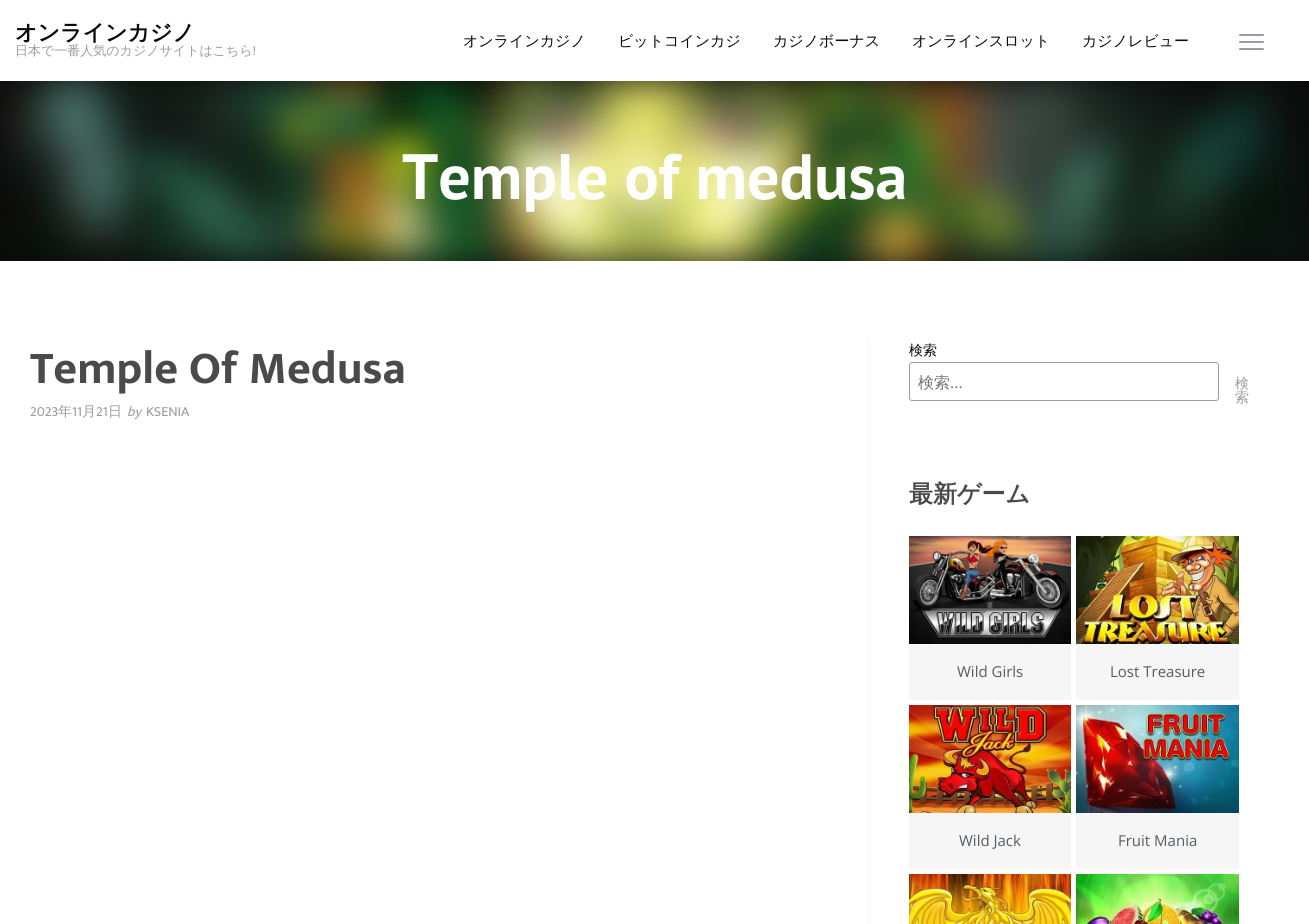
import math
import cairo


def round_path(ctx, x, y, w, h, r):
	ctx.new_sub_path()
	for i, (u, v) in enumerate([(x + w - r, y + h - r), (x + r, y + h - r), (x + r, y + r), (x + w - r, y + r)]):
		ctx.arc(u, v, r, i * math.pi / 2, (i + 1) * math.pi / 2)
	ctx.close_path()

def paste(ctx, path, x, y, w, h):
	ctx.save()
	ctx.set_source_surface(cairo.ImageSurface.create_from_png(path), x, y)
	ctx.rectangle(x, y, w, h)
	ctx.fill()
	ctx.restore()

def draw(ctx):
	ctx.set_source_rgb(1, 1, 1)
	ctx.paint()
	ctx.select_font_face('WenQuanYi Zen Hei', cairo.FONT_SLANT_NORMAL, cairo.FONT_WEIGHT_BOLD)
	ctx.set_font_size(22)
	ctx.set_source_rgb(0.039, 0.039, 0.039)
	ctx.move_to(15, 40)
	ctx.show_text('オンラインカジノ')
	ctx.select_font_face('WenQuanYi Zen Hei Medium')
	ctx.set_font_size(13)
	ctx.set_source_rgb(0.608, 0.608, 0.655)
	ctx.move_to(15, 55)
	ctx.show_text('日本で一番人気のカジノサイトはこちら')
	ctx.select_font_face('PT Sans')
	ctx.move_to(252, 55)
	ctx.show_text('!')
	ctx.select_font_face('WenQuanYi Zen Hei Medium')
	ctx.set_font_size(15)
	ctx.set_source_rgb(0.039, 0.039, 0.039)
	for x, y, s in [
		(463, 46, 'オンラインカジノ'),
		(618, 46, 'ビットコインカジ'),
		(773, 46, 'カジノボーナス'),
		(912, 46, 'オンラインスロット'),
		(1082, 46, 'カジノレビュー'),
	]:
		ctx.move_to(x, y)
		ctx.show_text(s)
	ctx.set_source_rgb(0.608, 0.608, 0.655)
	round_path(ctx, 1239, 34, 25, 2, 1)
	ctx.fill()
	round_path(ctx, 1239, 41, 25, 2, 1)
	ctx.fill()
	round_path(ctx, 1239, 48, 25, 2, 1)
	ctx.fill()
	ctx.set_source_rgb(0.039, 0.039, 0.039)
	ctx.rectangle(0, 81, 1309, 180)
	ctx.fill()
	paste(ctx, 'media/1.png', 0, 81, 1309, 180)
	ctx.select_font_face('PT Sans', cairo.FONT_SLANT_NORMAL, cairo.FONT_WEIGHT_BOLD)
	ctx.set_font_size(64)
	ctx.set_source_rgb(1, 1, 1)
	ctx.move_to(402, 199)
	ctx.show_text('Temple of medusa')
	ctx.select_font_face('Ek Mukta', cairo.FONT_SLANT_NORMAL, cairo.FONT_WEIGHT_BOLD)
	ctx.set_font_size(46)
	ctx.set_source_rgb(0.29, 0.29, 0.29)
	ctx.move_to(30, 383)
	ctx.show_text('Temple Of Medusa')
	ctx.select_font_face('Ek Mukta')
	ctx.set_font_size(14)
	ctx.set_source_rgb(0.608, 0.608, 0.655)
	ctx.move_to(30, 416)
	ctx.show_text('2023')
	ctx.select_font_face('WenQuanYi Zen Hei Medium')
	ctx.move_to(58, 416)
	ctx.show_text('年')
	ctx.select_font_face('Ek Mukta')
	ctx.move_to(72, 416)
	ctx.show_text('11')
	ctx.select_font_face('WenQuanYi Zen Hei Medium')
	ctx.move_to(82, 416)
	ctx.show_text('月')
	ctx.select_font_face('Ek Mukta')
	ctx.move_to(96, 416)
	ctx.show_text('21')
	ctx.select_font_face('WenQuanYi Zen Hei Medium')
	ctx.move_to(108, 416)
	ctx.show_text('日')
	ctx.select_font_face('Ek Mukta', cairo.FONT_SLANT_ITALIC)
	ctx.move_to(127, 416)
	ctx.show_text('by')
	ctx.select_font_face('Ek Mukta')
	ctx.move_to(146, 416)
	ctx.show_text('KSENIA')
	ctx.set_source_rgb(0.961, 0.961, 0.961)
	ctx.rectangle(868, 337, 1, 587)
	ctx.fill()
	ctx.select_font_face('WenQuanYi Zen Hei Medium')
	ctx.set_source_rgb(0.039, 0.039, 0.039)
	ctx.move_to(909, 355)
	ctx.show_text('検索')
	round_path(ctx, 909.5, 362.5, 309, 38, 2.5)
	ctx.set_source_rgb(0.608, 0.608, 0.655)
	ctx.set_line_width(1)
	ctx.stroke()
	ctx.set_font_size(16)
	ctx.set_source_rgb(0.459, 0.459, 0.459)
	ctx.move_to(918, 388)
	ctx.show_text('検索')
	ctx.select_font_face('Open Sans')
	ctx.move_to(950, 388)
	ctx.show_text('...')
	ctx.select_font_face('WenQuanYi Zen Hei Medium')
	ctx.set_font_size(14)
	ctx.set_source_rgb(0.608, 0.608, 0.608)
	ctx.move_to(1235, 388)
	ctx.show_text('検')
	ctx.move_to(1235, 402)
	ctx.show_text('索')
	ctx.select_font_face('WenQuanYi Zen Hei', cairo.FONT_SLANT_NORMAL, cairo.FONT_WEIGHT_BOLD)
	ctx.set_font_size(24)
	ctx.set_source_rgb(0.29, 0.29, 0.29)
	ctx.move_to(909, 502)
	ctx.show_text('最新ゲーム')
	ctx.set_source_rgb(0.961, 0.961, 0.961)
	ctx.rectangle(909, 644, 162, 56)
	ctx.fill()
	paste(ctx, 'media/2.png', 909, 536, 162, 108)
	ctx.select_font_face('Open Sans')
	ctx.set_font_size(15)
	ctx.set_source_rgb(0.322, 0.365, 0.392)
	ctx.move_to(957, 677)
	ctx.show_text('Wild Girls')
	ctx.set_source_rgb(0.961, 0.961, 0.961)
	ctx.rectangle(1076, 644, 163, 56)
	ctx.fill()
	paste(ctx, 'media/3.png', 1076, 536, 163, 108)
	ctx.set_source_rgb(0.322, 0.365, 0.392)
	ctx.move_to(1110, 677)
	ctx.show_text('Lost Treasure')
	ctx.set_source_rgb(0.961, 0.961, 0.961)
	ctx.rectangle(909, 813, 162, 56)
	ctx.fill()
	paste(ctx, 'media/4.png', 909, 705, 162, 108)
	ctx.set_source_rgb(0.322, 0.365, 0.392)
	ctx.move_to(959, 846)
	ctx.show_text('Wild Jack')
	ctx.set_source_rgb(0.961, 0.961, 0.961)
	ctx.rectangle(1076, 813, 163, 56)
	ctx.fill()
	paste(ctx, 'media/5.png', 1076, 705, 163, 108)
	ctx.set_source_rgb(0.322, 0.365, 0.392)
	ctx.move_to(1118, 846)
	ctx.show_text('Fruit Mania')
	paste(ctx, 'media/6.png', 909, 874, 162, 50)
	paste(ctx, 'media/7.png', 1076, 874, 163, 50)


surface = cairo.ImageSurface(cairo.FORMAT_RGB24, 1309, 924)
ctx = cairo.Context(surface)
options = cairo.FontOptions()
options.set_hint_metrics(cairo.HINT_METRICS_OFF)
options.set_hint_style(cairo.HINT_STYLE_NONE)
ctx.set_font_options(options)
ctx.set_miter_limit(4)
draw(ctx)
surface.write_to_png('image.png')
